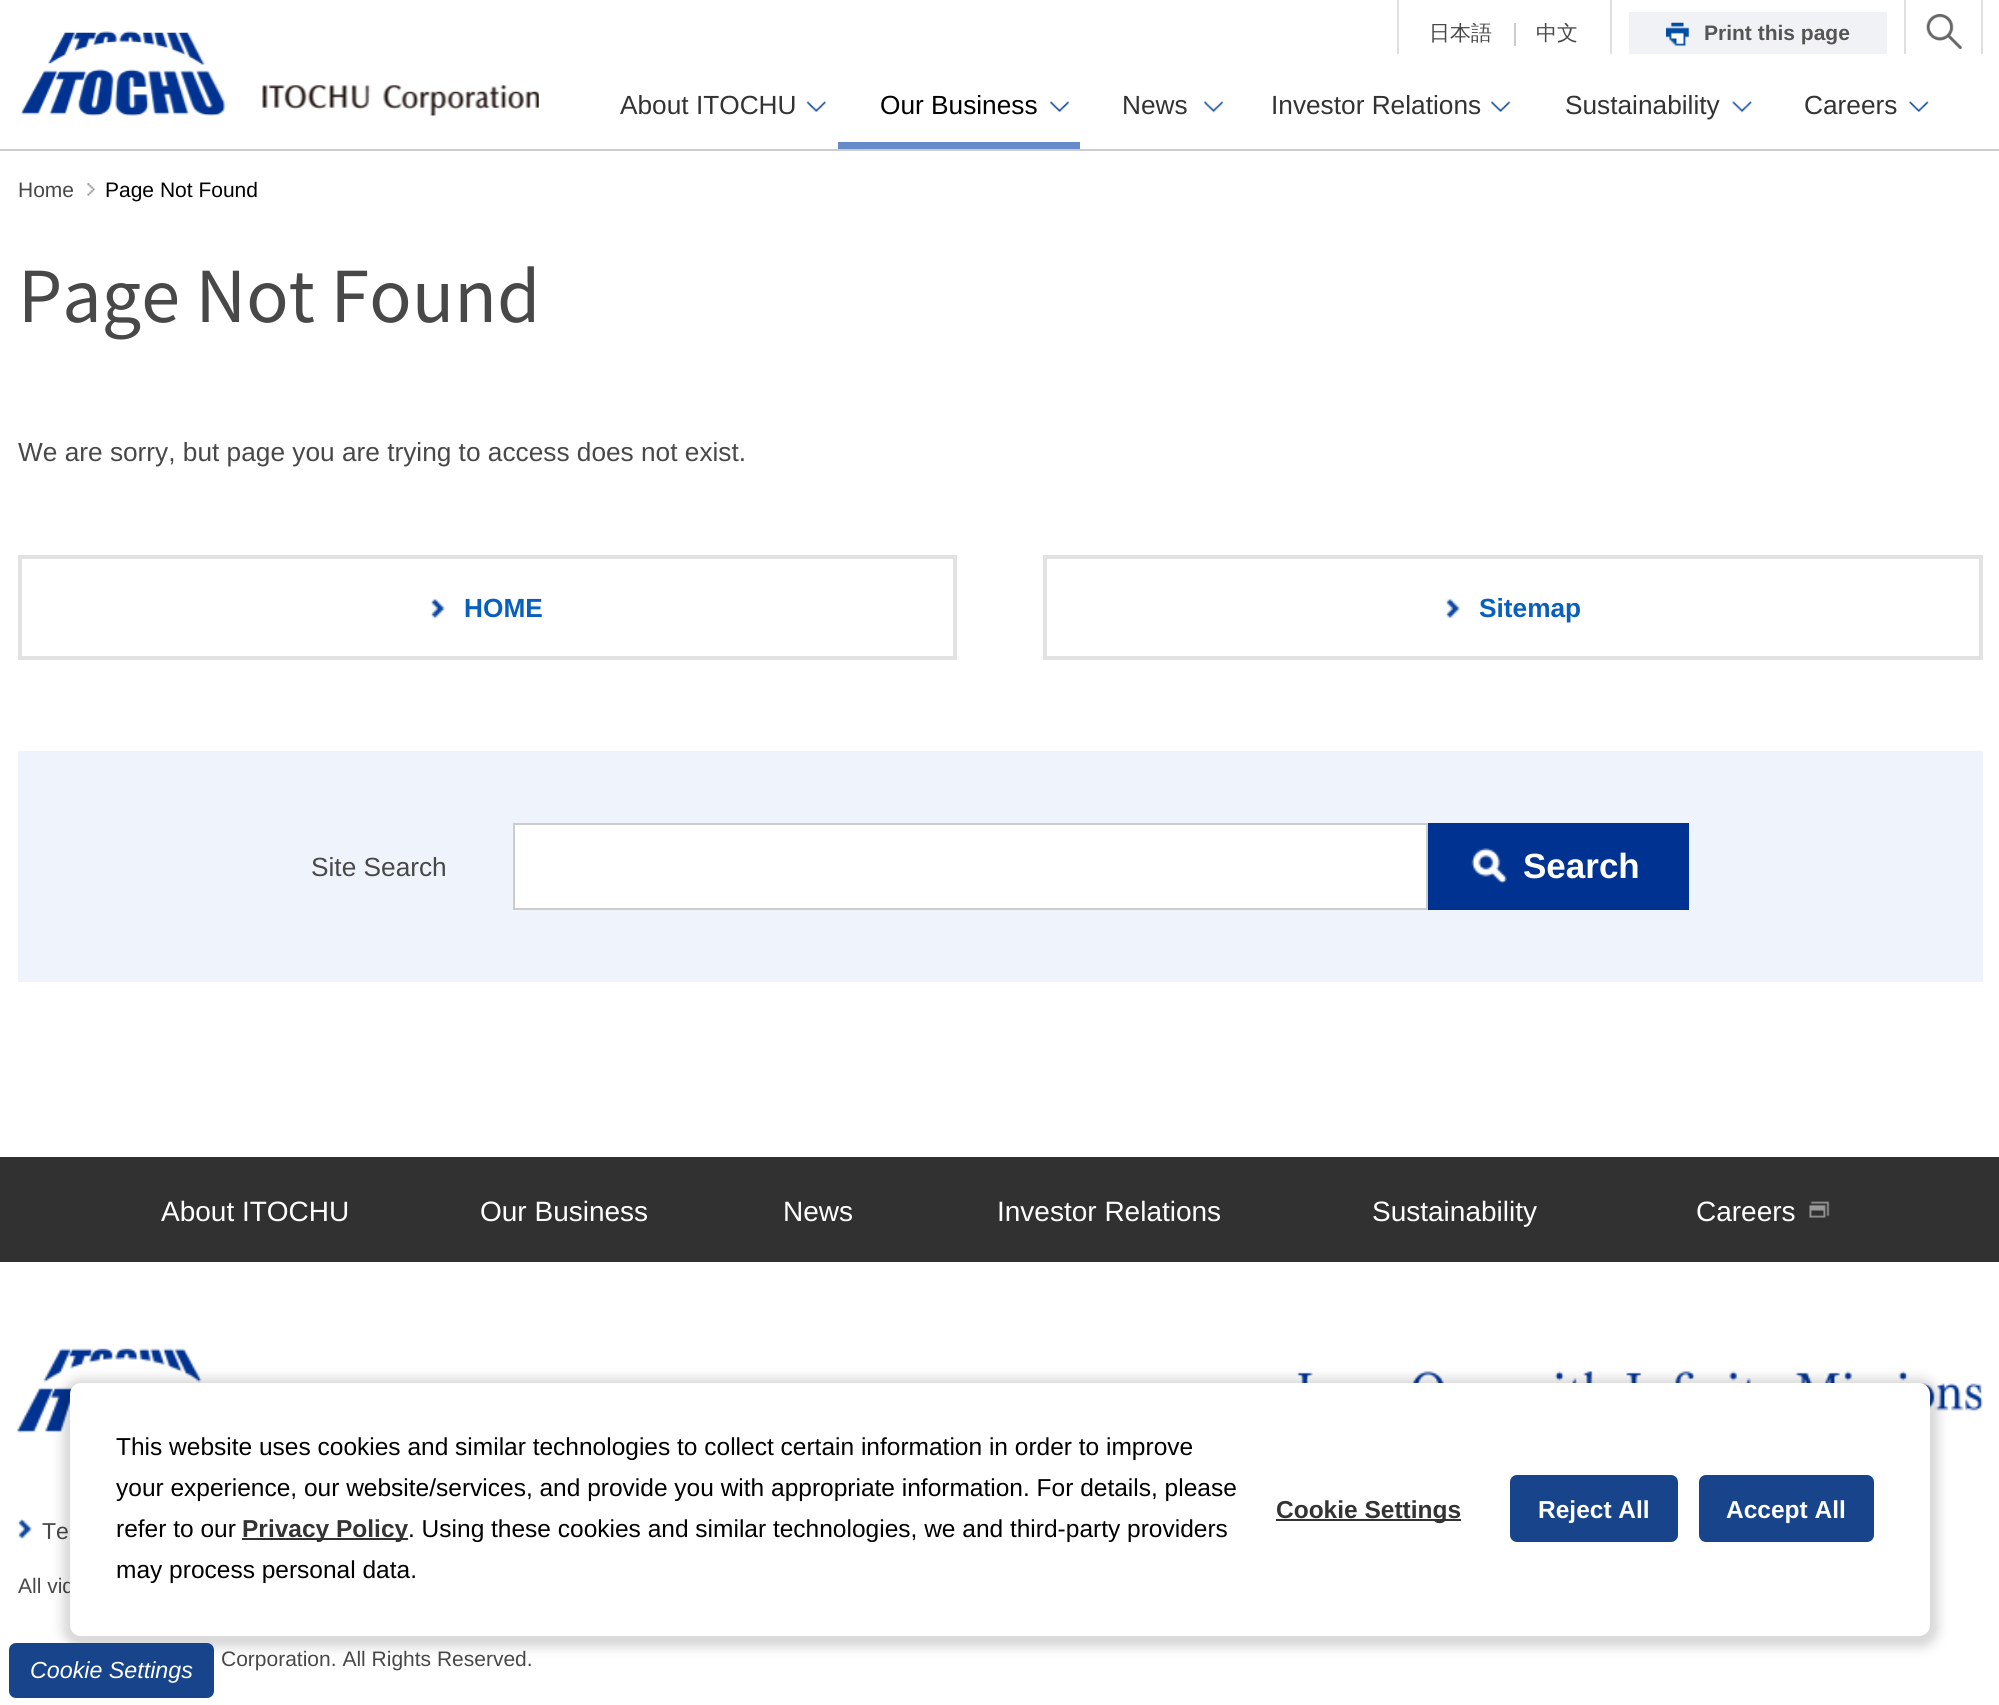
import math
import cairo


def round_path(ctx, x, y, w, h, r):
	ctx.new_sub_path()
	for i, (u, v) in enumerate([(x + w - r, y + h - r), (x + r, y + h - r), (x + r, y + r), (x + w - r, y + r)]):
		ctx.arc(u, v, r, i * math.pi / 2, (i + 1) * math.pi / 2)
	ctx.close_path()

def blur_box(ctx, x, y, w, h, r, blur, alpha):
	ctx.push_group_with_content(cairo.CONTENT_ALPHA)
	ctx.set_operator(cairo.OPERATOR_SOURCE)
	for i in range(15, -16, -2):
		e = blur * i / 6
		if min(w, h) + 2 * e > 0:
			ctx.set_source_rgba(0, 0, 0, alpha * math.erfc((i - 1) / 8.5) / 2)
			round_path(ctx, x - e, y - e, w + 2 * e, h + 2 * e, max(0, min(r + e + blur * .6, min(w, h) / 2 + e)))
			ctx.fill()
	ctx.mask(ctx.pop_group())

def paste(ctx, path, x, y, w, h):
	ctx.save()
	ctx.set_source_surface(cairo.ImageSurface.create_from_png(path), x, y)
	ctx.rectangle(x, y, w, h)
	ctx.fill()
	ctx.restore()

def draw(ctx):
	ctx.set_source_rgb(1, 1, 1)
	ctx.paint()
	ctx.set_source_rgb(0.8, 0.8, 0.8)
	ctx.rectangle(0, 149, 1999, 2)
	ctx.fill()
	paste(ctx, 'media/1.png', 21, 31, 518, 85)
	ctx.set_source_rgb(0.878, 0.878, 0.878)
	ctx.rectangle(1397, 0, 2, 54)
	ctx.fill()
	ctx.save()
	ctx.rectangle(1430, 23, 149, 23)
	ctx.clip()
	ctx.select_font_face('WenQuanYi Zen Hei Medium')
	ctx.set_font_size(21)
	ctx.set_source_rgb(0.282, 0.282, 0.282)
	ctx.move_to(1429, 40)
	ctx.show_text('日本語')
	ctx.restore()
	ctx.set_source_rgb(0.8, 0.8, 0.8)
	ctx.rectangle(1514, 23, 2, 23)
	ctx.fill()
	ctx.save()
	ctx.rectangle(1430, 23, 149, 23)
	ctx.clip()
	ctx.select_font_face('WenQuanYi Zen Hei Medium')
	ctx.set_font_size(21)
	ctx.set_source_rgb(0.282, 0.282, 0.282)
	ctx.move_to(1536, 40)
	ctx.show_text('中文')
	ctx.restore()
	ctx.set_source_rgb(0.878, 0.878, 0.878)
	ctx.rectangle(1610, 0, 2, 54)
	ctx.fill()
	ctx.set_source_rgb(0.941, 0.949, 0.961)
	ctx.rectangle(1629, 12, 258, 42)
	ctx.fill()
	paste(ctx, 'media/2.png', 1666, 22, 23, 24)
	ctx.select_font_face('Liberation Sans', cairo.FONT_SLANT_NORMAL, cairo.FONT_WEIGHT_BOLD)
	ctx.set_font_size(21)
	ctx.set_source_rgb(0.333, 0.333, 0.333)
	ctx.move_to(1704, 40)
	ctx.show_text('Print this page')
	ctx.set_source_rgb(0.878, 0.878, 0.878)
	ctx.rectangle(1981, 0, 2, 54)
	ctx.fill()
	ctx.rectangle(1904, 0, 2, 54)
	ctx.fill()
	paste(ctx, 'media/3.png', 1926, 14, 36, 35)
	paste(ctx, 'media/4.png', 806, 101, 20, 11)
	ctx.select_font_face('Liberation Sans')
	ctx.set_font_size(26.25)
	ctx.set_source_rgb(0.2, 0.2, 0.2)
	ctx.move_to(620, 114)
	ctx.show_text('About ITOCHU')
	paste(ctx, 'media/5.png', 1050, 101, 20, 11)
	ctx.set_source_rgb(0, 0, 0)
	ctx.move_to(880, 114)
	ctx.show_text('Our Business')
	ctx.set_source_rgb(0.4, 0.545, 0.788)
	ctx.rectangle(838, 142, 242, 7)
	ctx.fill()
	paste(ctx, 'media/6.png', 1204, 101, 20, 12)
	ctx.set_source_rgb(0.2, 0.2, 0.2)
	ctx.move_to(1122, 114)
	ctx.show_text('News')
	paste(ctx, 'media/5.png', 1491, 101, 20, 11)
	ctx.move_to(1271, 114)
	ctx.show_text('Investor Relations')
	paste(ctx, 'media/7.png', 1732, 101, 20, 12)
	ctx.move_to(1565, 114)
	ctx.show_text('Sustainability')
	paste(ctx, 'media/8.png', 1909, 101, 20, 11)
	ctx.move_to(1804, 114)
	ctx.show_text('Careers')
	ctx.set_font_size(21)
	ctx.set_source_rgb(0.282, 0.282, 0.282)
	ctx.move_to(18, 197)
	ctx.show_text('Home')
	paste(ctx, 'media/9.png', 87, 183, 8, 13)
	ctx.set_source_rgb(0, 0, 0)
	ctx.move_to(105, 197)
	ctx.show_text('Page Not Found')
	ctx.select_font_face('Noto Sans JP')
	ctx.set_font_size(70)
	ctx.set_source_rgb(0.282, 0.282, 0.282)
	ctx.move_to(18, 322)
	ctx.show_text('Page Not Found')
	ctx.select_font_face('Liberation Sans')
	ctx.set_font_size(26.25)
	ctx.move_to(18, 461)
	ctx.show_text('We are sorry, but page you are trying to access does not exist.')
	ctx.rectangle(20, 557, 935, 101)
	ctx.set_source_rgb(0.886, 0.886, 0.886)
	ctx.set_line_width(4)
	ctx.stroke()
	paste(ctx, 'media/10.png', 430, 598, 15, 21)
	ctx.select_font_face('Liberation Sans', cairo.FONT_SLANT_NORMAL, cairo.FONT_WEIGHT_BOLD)
	ctx.set_source_rgb(0.039, 0.373, 0.745)
	ctx.move_to(464, 617)
	ctx.show_text('HOME')
	ctx.rectangle(1045, 557, 936, 101)
	ctx.set_source_rgb(0.886, 0.886, 0.886)
	ctx.stroke()
	paste(ctx, 'media/10.png', 1445, 598, 15, 21)
	ctx.set_source_rgb(0.039, 0.373, 0.745)
	ctx.move_to(1479, 617)
	ctx.show_text('Sitemap')
	ctx.set_source_rgb(0.937, 0.957, 0.988)
	ctx.rectangle(18, 751, 1965, 231)
	ctx.fill()
	ctx.select_font_face('Liberation Sans')
	ctx.set_source_rgb(0.282, 0.282, 0.282)
	ctx.move_to(311, 876)
	ctx.show_text('Site Search')
	ctx.set_source_rgb(1, 1, 1)
	ctx.rectangle(515, 825, 911, 83)
	ctx.fill()
	ctx.rectangle(514, 824, 1174, 85)
	ctx.set_source_rgb(0.8, 0.8, 0.8)
	ctx.set_line_width(2)
	ctx.stroke()
	ctx.set_source_rgb(0, 0.2, 0.569)
	ctx.rectangle(1428, 823, 261, 87)
	ctx.fill()
	paste(ctx, 'media/11.png', 1471, 848, 36, 36)
	ctx.set_source_rgb(0.8, 0.8, 0.8)
	ctx.rectangle(1426, 823, 2, 87)
	ctx.fill()
	ctx.select_font_face('Liberation Sans', cairo.FONT_SLANT_NORMAL, cairo.FONT_WEIGHT_BOLD)
	ctx.set_font_size(35)
	ctx.set_source_rgb(1, 1, 1)
	ctx.move_to(1523, 878)
	ctx.show_text('Search')
	ctx.set_source_rgb(0.192, 0.192, 0.192)
	ctx.rectangle(0, 1157, 1999, 105)
	ctx.fill()
	ctx.select_font_face('Liberation Sans')
	ctx.set_font_size(28)
	ctx.set_source_rgb(1, 1, 1)
	for x, y, s in [
		(161, 1221, 'About ITOCHU'),
		(480, 1221, 'Our Business'),
		(783, 1221, 'News'),
		(997, 1221, 'Investor Relations'),
		(1372, 1221, 'Sustainability'),
		(1696, 1221, 'Careers'),
	]:
		ctx.move_to(x, y)
		ctx.show_text(s)
	paste(ctx, 'media/12.png', 1809, 1201, 21, 17)
	paste(ctx, 'media/13.png', 17, 1348, 185, 85)
	paste(ctx, 'media/14.png', 1296, 1371, 687, 40)
	paste(ctx, 'media/15.png', 17, 1518, 15, 21)
	ctx.set_font_size(23)
	ctx.set_source_rgb(0.282, 0.282, 0.282)
	ctx.move_to(42, 1539)
	ctx.show_text('Te')
	ctx.set_font_size(21)
	ctx.move_to(18, 1593)
	ctx.show_text('All vid')
	ctx.move_to(221, 1666)
	ctx.show_text('Corporation. All Rights Reserved.')
	ctx.set_source_rgb(0, 0, 0)
	blur_box(ctx, 65, 1381, 1871, 264, 16, 2.5, 0.05)
	blur_box(ctx, 60, 1376, 1881, 274, 21, 5, 0.1)
	ctx.set_source_rgb(1, 1, 1)
	round_path(ctx, 70, 1383, 1860, 253, 11)
	ctx.fill()
	ctx.set_font_size(24.5)
	ctx.set_source_rgb(0, 0, 0)
	for x, y, s in [
		(116, 1455, 'This website uses cookies and similar technologies to collect certain information in order to improve'),
		(116, 1496, 'your experience, our website/services, and provide you with appropriate information. For details, please'),
		(116, 1537, 'refer to our'),
	]:
		ctx.move_to(x, y)
		ctx.show_text(s)
	ctx.set_source_rgb(0.196, 0.196, 0.196)
	ctx.rectangle(242, 1538, 166, 2)
	ctx.fill()
	ctx.select_font_face('Liberation Sans', cairo.FONT_SLANT_NORMAL, cairo.FONT_WEIGHT_BOLD)
	ctx.set_source_rgb(0.2, 0.2, 0.2)
	ctx.move_to(242, 1537)
	ctx.show_text('Privacy Policy')
	ctx.select_font_face('Liberation Sans')
	ctx.set_source_rgb(0, 0, 0)
	ctx.move_to(408, 1537)
	ctx.show_text('. Using these cookies and similar technologies, we and third-party providers')
	ctx.move_to(116, 1578)
	ctx.show_text('may process personal data.')
	ctx.set_source_rgb(0.196, 0.196, 0.196)
	ctx.rectangle(1276, 1519, 185, 2)
	ctx.fill()
	ctx.select_font_face('Liberation Sans', cairo.FONT_SLANT_NORMAL, cairo.FONT_WEIGHT_BOLD)
	ctx.set_source_rgb(0.2, 0.2, 0.2)
	ctx.move_to(1276, 1518)
	ctx.show_text('Cookie Settings')
	ctx.set_source_rgb(0.09, 0.267, 0.541)
	round_path(ctx, 1510, 1475, 168, 67, 7)
	ctx.fill()
	ctx.set_source_rgb(1, 1, 1)
	ctx.move_to(1538, 1518)
	ctx.show_text('Reject All')
	ctx.set_source_rgb(0.09, 0.267, 0.541)
	round_path(ctx, 1699, 1475, 175, 67, 7)
	ctx.fill()
	ctx.set_source_rgb(1, 1, 1)
	ctx.move_to(1726, 1518)
	ctx.show_text('Accept All')
	ctx.set_source_rgb(0.09, 0.267, 0.541)
	round_path(ctx, 9, 1643, 205, 55, 7)
	ctx.fill()
	ctx.select_font_face('Liberation Sans', cairo.FONT_SLANT_ITALIC)
	ctx.set_font_size(23.25)
	ctx.set_source_rgb(1, 1, 1)
	ctx.move_to(30, 1678)
	ctx.show_text('Cookie Settings')


surface = cairo.ImageSurface(cairo.FORMAT_RGB24, 1999, 1705)
ctx = cairo.Context(surface)
options = cairo.FontOptions()
options.set_hint_metrics(cairo.HINT_METRICS_OFF)
options.set_hint_style(cairo.HINT_STYLE_NONE)
ctx.set_font_options(options)
ctx.set_miter_limit(4)
draw(ctx)
surface.write_to_png('image.png')
